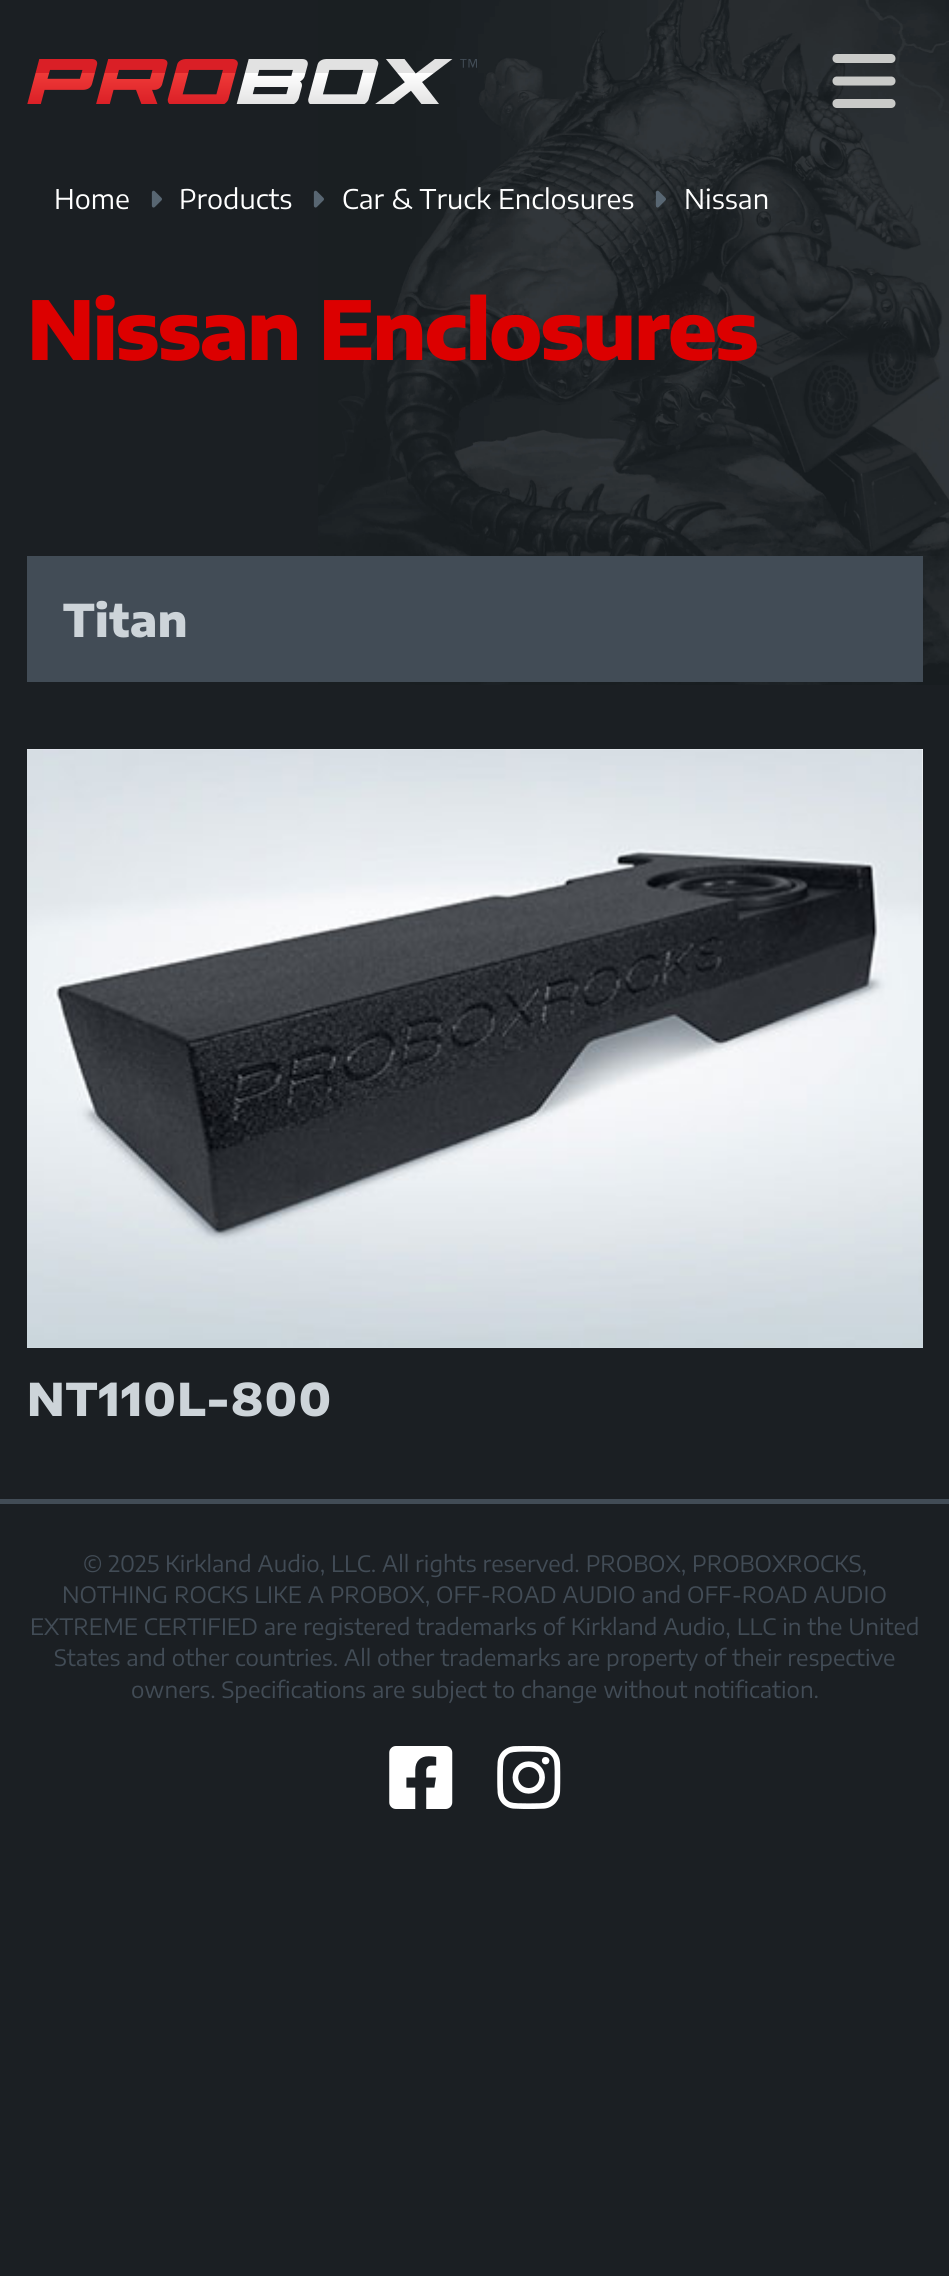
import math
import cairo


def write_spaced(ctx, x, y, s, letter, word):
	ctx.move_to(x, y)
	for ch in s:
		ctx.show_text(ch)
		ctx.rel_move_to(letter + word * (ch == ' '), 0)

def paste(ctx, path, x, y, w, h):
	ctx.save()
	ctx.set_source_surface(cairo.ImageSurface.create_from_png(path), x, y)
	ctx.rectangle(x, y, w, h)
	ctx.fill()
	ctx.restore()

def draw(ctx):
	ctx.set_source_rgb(0.106, 0.122, 0.137)
	ctx.paint()
	paste(ctx, 'media/1.png', 318, 0, 631, 685)
	paste(ctx, 'media/2.png', 27, 59, 450, 45)
	paste(ctx, 'media/3.png', 832, 54, 64, 54)
	ctx.select_font_face('Encode Sans Semi Expanded')
	ctx.set_font_size(27)
	ctx.set_source_rgb(1, 1, 1)
	ctx.move_to(54, 209)
	ctx.show_text('Home')
	paste(ctx, 'media/4.png', 151, 190, 11, 18)
	ctx.move_to(179, 209)
	ctx.show_text('Products')
	paste(ctx, 'media/5.png', 313, 190, 11, 18)
	ctx.move_to(342, 209)
	ctx.show_text('Car & Truck Enclosures')
	paste(ctx, 'media/6.png', 655, 190, 11, 18)
	ctx.move_to(684, 209)
	ctx.show_text('Nissan')
	ctx.select_font_face('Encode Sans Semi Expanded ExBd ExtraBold')
	ctx.set_font_size(81)
	ctx.set_source_rgb(0.863, 0, 0)
	write_spaced(ctx, 27, 360, 'Nissan Enclosures', -2.25, 0)
	ctx.set_source_rgb(0.259, 0.298, 0.337)
	ctx.rectangle(27, 556, 896, 126)
	ctx.fill()
	ctx.set_font_size(45)
	ctx.set_source_rgb(0.804, 0.831, 0.851)
	ctx.move_to(63, 637)
	ctx.show_text('Titan')
	gradient = cairo.LinearGradient(475, 749, 475, 1348)
	gradient.add_color_stop_rgba(0, 0.992, 0.992, 0.996, 1)
	gradient.add_color_stop_rgba(1, 0.812, 0.851, 0.875, 1)
	ctx.set_source(gradient)
	ctx.rectangle(27, 749, 896, 599)
	ctx.fill()
	paste(ctx, 'media/7.png', 27, 749, 896, 598)
	ctx.set_source_rgb(0.804, 0.831, 0.851)
	write_spaced(ctx, 27, 1416, 'NT110L-800', 1.1, 0)
	ctx.set_source_rgb(0.259, 0.298, 0.337)
	ctx.rectangle(0, 1499, 949, 5)
	ctx.fill()
	ctx.select_font_face('Encode Sans Semi Expanded')
	ctx.set_font_size(22.5)
	for x, y, s in [
		(83, 1572, '© 2025 Kirkland Audio, LLC. All rights reserved. PROBOX, PROBOXROCKS,'),
		(62, 1603, 'NOTHING ROCKS LIKE A PROBOX, OFF-ROAD AUDIO and OFF-ROAD AUDIO'),
		(30, 1635, 'EXTREME CERTIFIED are registered trademarks of Kirkland Audio, LLC in the United'),
		(54, 1666, 'States and other countries. All other trademarks are property of their respective'),
		(131, 1698, 'owners. Specifications are subject to change without notification.'),
	]:
		ctx.move_to(x, y)
		ctx.show_text(s)
	paste(ctx, 'media/8.png', 389, 1746, 64, 63)
	paste(ctx, 'media/9.png', 497, 1746, 64, 63)


surface = cairo.ImageSurface(cairo.FORMAT_RGB24, 949, 2276)
ctx = cairo.Context(surface)
options = cairo.FontOptions()
options.set_hint_metrics(cairo.HINT_METRICS_OFF)
options.set_hint_style(cairo.HINT_STYLE_NONE)
ctx.set_font_options(options)
ctx.set_miter_limit(4)
draw(ctx)
surface.write_to_png('image.png')
